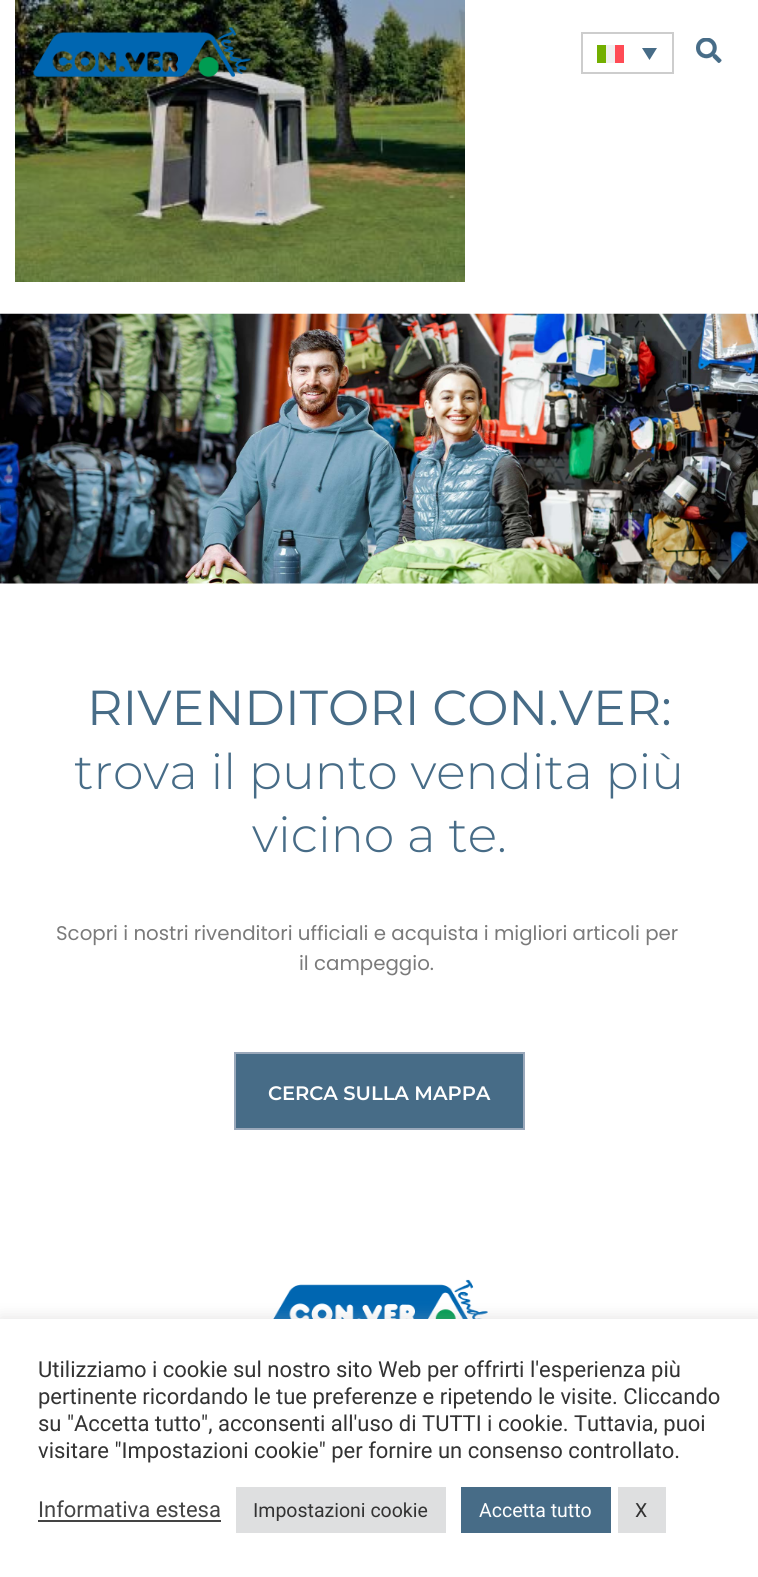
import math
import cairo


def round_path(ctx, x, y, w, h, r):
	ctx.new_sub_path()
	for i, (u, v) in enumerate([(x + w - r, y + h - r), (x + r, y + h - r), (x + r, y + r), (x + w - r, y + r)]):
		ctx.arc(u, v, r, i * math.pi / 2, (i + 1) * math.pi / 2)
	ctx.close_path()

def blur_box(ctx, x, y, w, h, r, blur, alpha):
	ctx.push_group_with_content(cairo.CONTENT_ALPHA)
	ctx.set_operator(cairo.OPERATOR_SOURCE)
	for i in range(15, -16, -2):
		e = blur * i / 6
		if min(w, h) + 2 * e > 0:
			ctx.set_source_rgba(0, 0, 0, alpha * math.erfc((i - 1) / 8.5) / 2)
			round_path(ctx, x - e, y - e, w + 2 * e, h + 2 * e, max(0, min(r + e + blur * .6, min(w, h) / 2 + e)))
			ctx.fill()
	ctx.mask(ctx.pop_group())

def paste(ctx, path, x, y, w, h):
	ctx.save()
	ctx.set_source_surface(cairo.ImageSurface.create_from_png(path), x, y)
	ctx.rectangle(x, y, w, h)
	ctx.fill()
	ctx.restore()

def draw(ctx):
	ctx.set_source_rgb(1, 1, 1)
	ctx.paint()
	paste(ctx, 'media/1.png', 15, 0, 450, 282)
	paste(ctx, 'media/2.png', 33, 27, 218, 50)
	ctx.rectangle(582, 33, 91, 40)
	ctx.set_source_rgb(0.804, 0.804, 0.804)
	ctx.stroke()
	ctx.set_source_rgb(0.451, 0.686, 0)
	ctx.rectangle(597, 45, 9, 18)
	ctx.fill()
	ctx.set_source_rgb(0.941, 0.941, 0.941)
	ctx.rectangle(606, 45, 9, 18)
	ctx.fill()
	ctx.set_source_rgb(1, 0.294, 0.333)
	ctx.rectangle(615, 45, 9, 18)
	ctx.fill()
	ctx.set_source_rgb(0.278, 0.424, 0.529)
	ctx.new_path()
	ctx.move_to(642, 48)
	ctx.line_to(657, 48)
	ctx.line_to(649.5, 60)
	ctx.close_path()
	ctx.fill()
	paste(ctx, 'media/3.png', 696, 38, 26, 25)
	paste(ctx, 'media/4.png', 0, 313, 758, 271)
	ctx.select_font_face('Montserrat')
	ctx.set_font_size(49.1)
	ctx.move_to(87, 725)
	ctx.show_text('RIVENDITORI CON.VER:')
	ctx.select_font_face('Montserrat Light')
	ctx.move_to(74, 789)
	ctx.show_text('trova il punto vendita più')
	ctx.move_to(252, 852)
	ctx.show_text('vicino a te.')
	ctx.select_font_face('Poppins')
	ctx.set_font_size(19.8)
	ctx.set_source_rgb(0.478, 0.478, 0.478)
	ctx.move_to(56, 940)
	ctx.show_text('Scopri i nostri rivenditori ufficiali e acquista i migliori articoli per')
	ctx.move_to(299, 970)
	ctx.show_text('il campeggio.')
	ctx.set_source_rgb(0.278, 0.424, 0.529)
	ctx.rectangle(235, 1053, 289, 76)
	ctx.fill_preserve()
	ctx.set_source_rgb(0.604, 0.659, 0.729)
	ctx.stroke()
	ctx.select_font_face('Montserrat SemiBold')
	ctx.set_font_size(19.5)
	ctx.set_source_rgb(0.996, 0.996, 0.996)
	ctx.move_to(268, 1100)
	ctx.show_text('CERCA SULLA MAPPA')
	paste(ctx, 'media/5.png', 273, 1279, 215, 40)
	ctx.set_source_rgb(0.675, 0.671, 0.671)
	blur_box(ctx, 0, 1317, 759, 260, 0, 7.5, 0.3)
	ctx.set_source_rgb(1, 1, 1)
	ctx.rectangle(0, 1319, 758, 258)
	ctx.fill()
	ctx.select_font_face('Roboto')
	ctx.set_font_size(22)
	ctx.set_source_rgb(0.2, 0.2, 0.2)
	for x, y, s in [
		(38, 1377, 'Utilizziamo i cookie sul nostro sito Web per offrirti l\'esperienza più'),
		(38, 1404, 'pertinente ricordando le tue preferenze e ripetendo le visite. Cliccando'),
		(38, 1431, 'su "Accetta tutto", acconsenti all\'uso di TUTTI i cookie. Tuttavia, puoi'),
		(38, 1458, 'visitare "Impostazioni cookie" per fornire un consenso controllato.'),
	]:
		ctx.move_to(x, y)
		ctx.show_text(s)
	ctx.set_source_rgb(0.267, 0.267, 0.267)
	ctx.move_to(38, 1517)
	ctx.show_text('Informativa estesa')
	ctx.rectangle(38, 1520, 183, 2)
	ctx.fill()
	ctx.set_source_rgb(0.871, 0.875, 0.878)
	ctx.rectangle(236, 1487, 210, 46)
	ctx.fill()
	ctx.set_font_size(19.5)
	ctx.set_source_rgb(0.2, 0.2, 0.2)
	ctx.move_to(253, 1517)
	ctx.show_text('Impostazioni cookie')
	ctx.set_source_rgb(0.278, 0.424, 0.529)
	ctx.rectangle(461, 1487, 150, 46)
	ctx.fill()
	ctx.set_source_rgb(0.996, 0.996, 0.996)
	ctx.move_to(479, 1517)
	ctx.show_text('Accetta tutto')
	ctx.set_source_rgb(0.871, 0.875, 0.878)
	ctx.rectangle(618, 1487, 48, 46)
	ctx.fill()
	ctx.set_source_rgb(0.2, 0.2, 0.2)
	ctx.move_to(635, 1517)
	ctx.show_text('X')


surface = cairo.ImageSurface(cairo.FORMAT_RGB24, 758, 1577)
ctx = cairo.Context(surface)
options = cairo.FontOptions()
options.set_hint_metrics(cairo.HINT_METRICS_OFF)
options.set_hint_style(cairo.HINT_STYLE_NONE)
ctx.set_font_options(options)
ctx.set_miter_limit(4)
draw(ctx)
surface.write_to_png('image.png')
